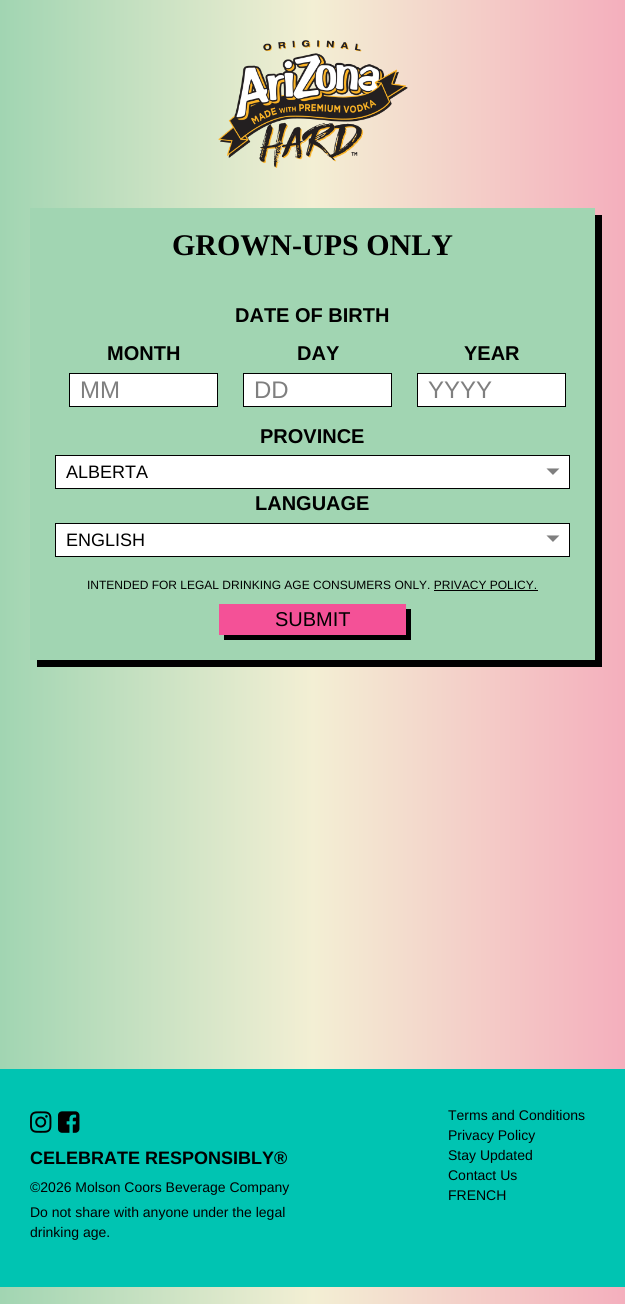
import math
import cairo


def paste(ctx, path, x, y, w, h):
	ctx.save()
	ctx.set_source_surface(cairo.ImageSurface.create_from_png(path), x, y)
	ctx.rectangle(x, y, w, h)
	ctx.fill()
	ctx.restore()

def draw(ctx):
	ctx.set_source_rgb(1, 1, 1)
	ctx.paint()
	gradient = cairo.LinearGradient(0, 644, 625, 644)
	gradient.add_color_stop_rgba(0, 0.631, 0.835, 0.698, 1)
	gradient.add_color_stop_rgba(0.5, 0.953, 0.937, 0.831, 1)
	gradient.add_color_stop_rgba(1, 0.957, 0.686, 0.741, 1)
	ctx.set_source(gradient)
	ctx.rectangle(0, 0, 625, 1304)
	ctx.fill()
	paste(ctx, 'media/1.png', 218, 40, 190, 128)
	ctx.set_source_rgb(0, 0, 0)
	ctx.new_path()
	ctx.move_to(37, 660)
	ctx.line_to(37, 667)
	ctx.line_to(602, 667)
	ctx.line_to(602, 215)
	ctx.line_to(595, 215)
	ctx.line_to(595, 660)
	ctx.close_path()
	ctx.fill()
	ctx.set_source_rgb(0.631, 0.835, 0.698)
	ctx.rectangle(30, 208, 565, 452)
	ctx.fill()
	ctx.select_font_face('Liberation Serif', cairo.FONT_SLANT_NORMAL, cairo.FONT_WEIGHT_BOLD)
	ctx.set_font_size(30)
	ctx.set_source_rgb(0, 0, 0)
	ctx.move_to(172, 255)
	ctx.show_text('GROWN-UPS ONLY')
	ctx.select_font_face('Liberation Sans', cairo.FONT_SLANT_NORMAL, cairo.FONT_WEIGHT_BOLD)
	ctx.set_font_size(20)
	ctx.move_to(235, 322)
	ctx.show_text('DATE OF BIRTH')
	ctx.move_to(107, 360)
	ctx.show_text('MONTH')
	ctx.set_source_rgb(1, 1, 1)
	ctx.rectangle(69.5, 373.5, 148, 33)
	ctx.fill_preserve()
	ctx.set_source_rgb(0, 0, 0)
	ctx.set_line_width(1)
	ctx.stroke()
	ctx.select_font_face('Liberation Sans')
	ctx.set_font_size(24)
	ctx.set_source_rgb(0.498, 0.498, 0.498)
	ctx.move_to(80, 398)
	ctx.show_text('MM')
	ctx.select_font_face('Liberation Sans', cairo.FONT_SLANT_NORMAL, cairo.FONT_WEIGHT_BOLD)
	ctx.set_font_size(20)
	ctx.set_source_rgb(0, 0, 0)
	ctx.move_to(297, 360)
	ctx.show_text('DAY')
	ctx.set_source_rgb(1, 1, 1)
	ctx.rectangle(243.5, 373.5, 148, 33)
	ctx.fill_preserve()
	ctx.set_source_rgb(0, 0, 0)
	ctx.stroke()
	ctx.select_font_face('Liberation Sans')
	ctx.set_font_size(24)
	ctx.set_source_rgb(0.498, 0.498, 0.498)
	ctx.move_to(254, 398)
	ctx.show_text('DD')
	ctx.select_font_face('Liberation Sans', cairo.FONT_SLANT_NORMAL, cairo.FONT_WEIGHT_BOLD)
	ctx.set_font_size(20)
	ctx.set_source_rgb(0, 0, 0)
	ctx.move_to(464, 360)
	ctx.show_text('YEAR')
	ctx.set_source_rgb(1, 1, 1)
	ctx.rectangle(417.5, 373.5, 148, 33)
	ctx.fill_preserve()
	ctx.set_source_rgb(0, 0, 0)
	ctx.stroke()
	ctx.select_font_face('Liberation Sans')
	ctx.set_font_size(24)
	ctx.set_source_rgb(0.498, 0.498, 0.498)
	ctx.move_to(428, 398)
	ctx.show_text('YYYY')
	ctx.select_font_face('Liberation Sans', cairo.FONT_SLANT_NORMAL, cairo.FONT_WEIGHT_BOLD)
	ctx.set_font_size(20)
	ctx.set_source_rgb(0, 0, 0)
	ctx.move_to(260, 443)
	ctx.show_text('PROVINCE')
	ctx.set_source_rgb(1, 1, 1)
	ctx.rectangle(55.5, 455.5, 514, 33)
	ctx.fill_preserve()
	ctx.set_source_rgb(0, 0, 0)
	ctx.stroke()
	ctx.select_font_face('Liberation Sans')
	ctx.set_font_size(18)
	ctx.move_to(66, 478)
	ctx.show_text('ALBERTA')
	ctx.select_font_face('DejaVu Sans')
	ctx.set_font_size(12)
	ctx.set_source_rgb(0.498, 0.498, 0.498)
	ctx.save()
	ctx.translate(554, 463)
	ctx.rotate(135 * math.pi / 180)
	ctx.move_to(0, 0)
	ctx.show_text('◥')
	ctx.restore()
	ctx.select_font_face('Liberation Sans', cairo.FONT_SLANT_NORMAL, cairo.FONT_WEIGHT_BOLD)
	ctx.set_font_size(20)
	ctx.set_source_rgb(0, 0, 0)
	ctx.move_to(255, 510)
	ctx.show_text('LANGUAGE')
	ctx.set_source_rgb(1, 1, 1)
	ctx.rectangle(55.5, 523.5, 514, 33)
	ctx.fill_preserve()
	ctx.set_source_rgb(0, 0, 0)
	ctx.stroke()
	ctx.select_font_face('Liberation Sans')
	ctx.set_font_size(18)
	ctx.move_to(66, 546)
	ctx.show_text('ENGLISH')
	ctx.select_font_face('DejaVu Sans')
	ctx.set_font_size(12)
	ctx.set_source_rgb(0.498, 0.498, 0.498)
	ctx.save()
	ctx.translate(554, 530)
	ctx.rotate(135 * math.pi / 180)
	ctx.move_to(0, 0)
	ctx.show_text('◥')
	ctx.restore()
	ctx.select_font_face('Liberation Sans')
	ctx.set_source_rgb(0, 0, 0)
	ctx.move_to(87, 589)
	ctx.show_text('INTENDED FOR LEGAL DRINKING AGE CONSUMERS ONLY. PRIVACY POLICY.')
	ctx.rectangle(434, 590, 104, 1)
	ctx.fill()
	ctx.new_path()
	ctx.move_to(224, 635)
	ctx.line_to(224, 640)
	ctx.line_to(411, 640)
	ctx.line_to(411, 609)
	ctx.line_to(406, 609)
	ctx.line_to(406, 635)
	ctx.close_path()
	ctx.fill()
	ctx.set_source_rgb(0.957, 0.318, 0.592)
	ctx.rectangle(219, 604, 187, 31)
	ctx.fill()
	ctx.set_font_size(20)
	ctx.set_source_rgb(0, 0, 0)
	ctx.move_to(275, 626)
	ctx.show_text('SUBMIT')
	ctx.set_source_rgb(0, 0.769, 0.698)
	ctx.rectangle(0, 1069, 625, 218)
	ctx.fill()
	paste(ctx, 'media/2.png', 30, 1111, 22, 22)
	paste(ctx, 'media/3.png', 58, 1111, 22, 22)
	ctx.select_font_face('Liberation Sans', cairo.FONT_SLANT_NORMAL, cairo.FONT_WEIGHT_BOLD)
	ctx.set_font_size(18)
	ctx.set_source_rgb(0, 0, 0)
	ctx.move_to(30, 1164)
	ctx.show_text('CELEBRATE RESPONSIBLY®')
	ctx.select_font_face('Liberation Sans')
	ctx.set_font_size(14)
	for x, y, s in [
		(30, 1192, '©2026 Molson Coors Beverage Company'),
		(30, 1217, 'Do not share with anyone under the legal'),
		(30, 1237, 'drinking age.'),
		(448, 1120, 'Terms and Conditions'),
		(448, 1140, 'Privacy Policy'),
		(448, 1160, 'Stay Updated'),
		(448, 1180, 'Contact Us'),
		(448, 1200, 'FRENCH'),
	]:
		ctx.move_to(x, y)
		ctx.show_text(s)


surface = cairo.ImageSurface(cairo.FORMAT_RGB24, 625, 1304)
ctx = cairo.Context(surface)
options = cairo.FontOptions()
options.set_hint_metrics(cairo.HINT_METRICS_OFF)
options.set_hint_style(cairo.HINT_STYLE_NONE)
ctx.set_font_options(options)
ctx.set_miter_limit(4)
draw(ctx)
surface.write_to_png('image.png')
